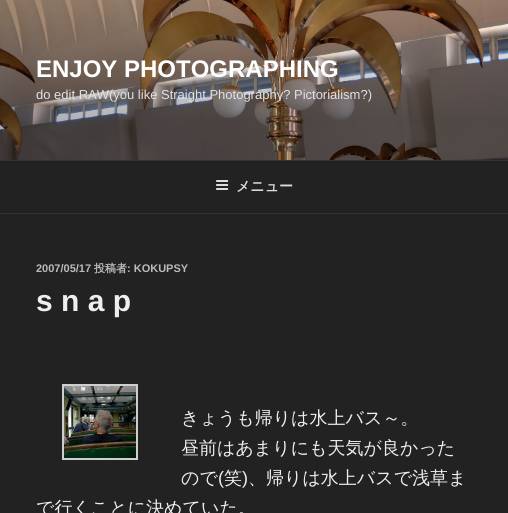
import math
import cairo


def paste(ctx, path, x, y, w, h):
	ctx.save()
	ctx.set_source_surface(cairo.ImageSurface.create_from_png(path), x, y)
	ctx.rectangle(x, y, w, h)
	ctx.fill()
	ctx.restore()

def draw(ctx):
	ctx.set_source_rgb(0.133, 0.133, 0.133)
	ctx.paint()
	paste(ctx, 'media/1.png', 0, 0, 508, 160)
	ctx.select_font_face('Liberation Sans', cairo.FONT_SLANT_NORMAL, cairo.FONT_WEIGHT_BOLD)
	ctx.set_font_size(24)
	ctx.set_source_rgb(1, 1, 1)
	ctx.move_to(36, 77)
	ctx.show_text('ENJOY PHOTOGRAPHING')
	ctx.select_font_face('Liberation Sans')
	ctx.set_font_size(13)
	ctx.set_source_rgb(0.89, 0.882, 0.882)
	ctx.move_to(36, 99)
	ctx.show_text('do edit RAW(you like Straight Photography? Pictorialism?)')
	ctx.set_source_rgb(0.2, 0.2, 0.2)
	ctx.rectangle(0, 160, 508, 1)
	ctx.fill()
	ctx.rectangle(0, 213, 508, 1)
	ctx.fill()
	paste(ctx, 'media/2.png', 216, 180, 13, 10)
	ctx.select_font_face('WenQuanYi Zen Hei', cairo.FONT_SLANT_NORMAL, cairo.FONT_WEIGHT_BOLD)
	ctx.set_font_size(14)
	ctx.set_source_rgb(0.867, 0.867, 0.867)
	ctx.move_to(236, 191)
	ctx.show_text('メニュー')
	ctx.select_font_face('Liberation Sans', cairo.FONT_SLANT_NORMAL, cairo.FONT_WEIGHT_BOLD)
	ctx.set_font_size(11)
	ctx.set_source_rgb(0.733, 0.733, 0.733)
	ctx.move_to(36, 272)
	ctx.show_text('2007/05/17')
	ctx.select_font_face('WenQuanYi Zen Hei', cairo.FONT_SLANT_NORMAL, cairo.FONT_WEIGHT_BOLD)
	ctx.move_to(94, 272)
	ctx.show_text('投稿者')
	ctx.select_font_face('Liberation Sans', cairo.FONT_SLANT_NORMAL, cairo.FONT_WEIGHT_BOLD)
	ctx.move_to(127, 272)
	ctx.show_text(': KOKUPSY')
	ctx.set_font_size(30)
	ctx.set_source_rgb(0.933, 0.933, 0.933)
	ctx.move_to(36, 311)
	ctx.show_text('s n a p')
	ctx.rectangle(63, 385, 74, 74)
	ctx.set_source_rgb(0.812, 0.812, 0.812)
	ctx.stroke()
	paste(ctx, 'media/3.png', 64, 386, 72, 72)
	ctx.select_font_face('WenQuanYi Zen Hei Medium')
	ctx.set_font_size(18)
	ctx.set_source_rgb(0.933, 0.933, 0.933)
	for x, y, s in [
		(181, 424, 'きょうも帰りは水上バス～。'),
		(181, 454, '昼前はあまりにも天気が良かった'),
		(181, 484, 'ので'),
	]:
		ctx.move_to(x, y)
		ctx.show_text(s)
	ctx.select_font_face('Liberation Sans')
	ctx.move_to(218, 484)
	ctx.show_text('(')
	ctx.select_font_face('WenQuanYi Zen Hei Medium')
	ctx.move_to(224, 484)
	ctx.show_text('笑')
	ctx.select_font_face('Liberation Sans')
	ctx.move_to(242, 484)
	ctx.show_text(')')
	ctx.select_font_face('WenQuanYi Zen Hei Medium')
	ctx.move_to(248, 484)
	ctx.show_text('、帰りは水上バスで浅草ま')
	ctx.move_to(36, 514)
	ctx.show_text('で行くことに決めていた。')


surface = cairo.ImageSurface(cairo.FORMAT_RGB24, 508, 513)
ctx = cairo.Context(surface)
options = cairo.FontOptions()
options.set_hint_metrics(cairo.HINT_METRICS_OFF)
options.set_hint_style(cairo.HINT_STYLE_NONE)
ctx.set_font_options(options)
ctx.set_miter_limit(4)
draw(ctx)
surface.write_to_png('image.png')
